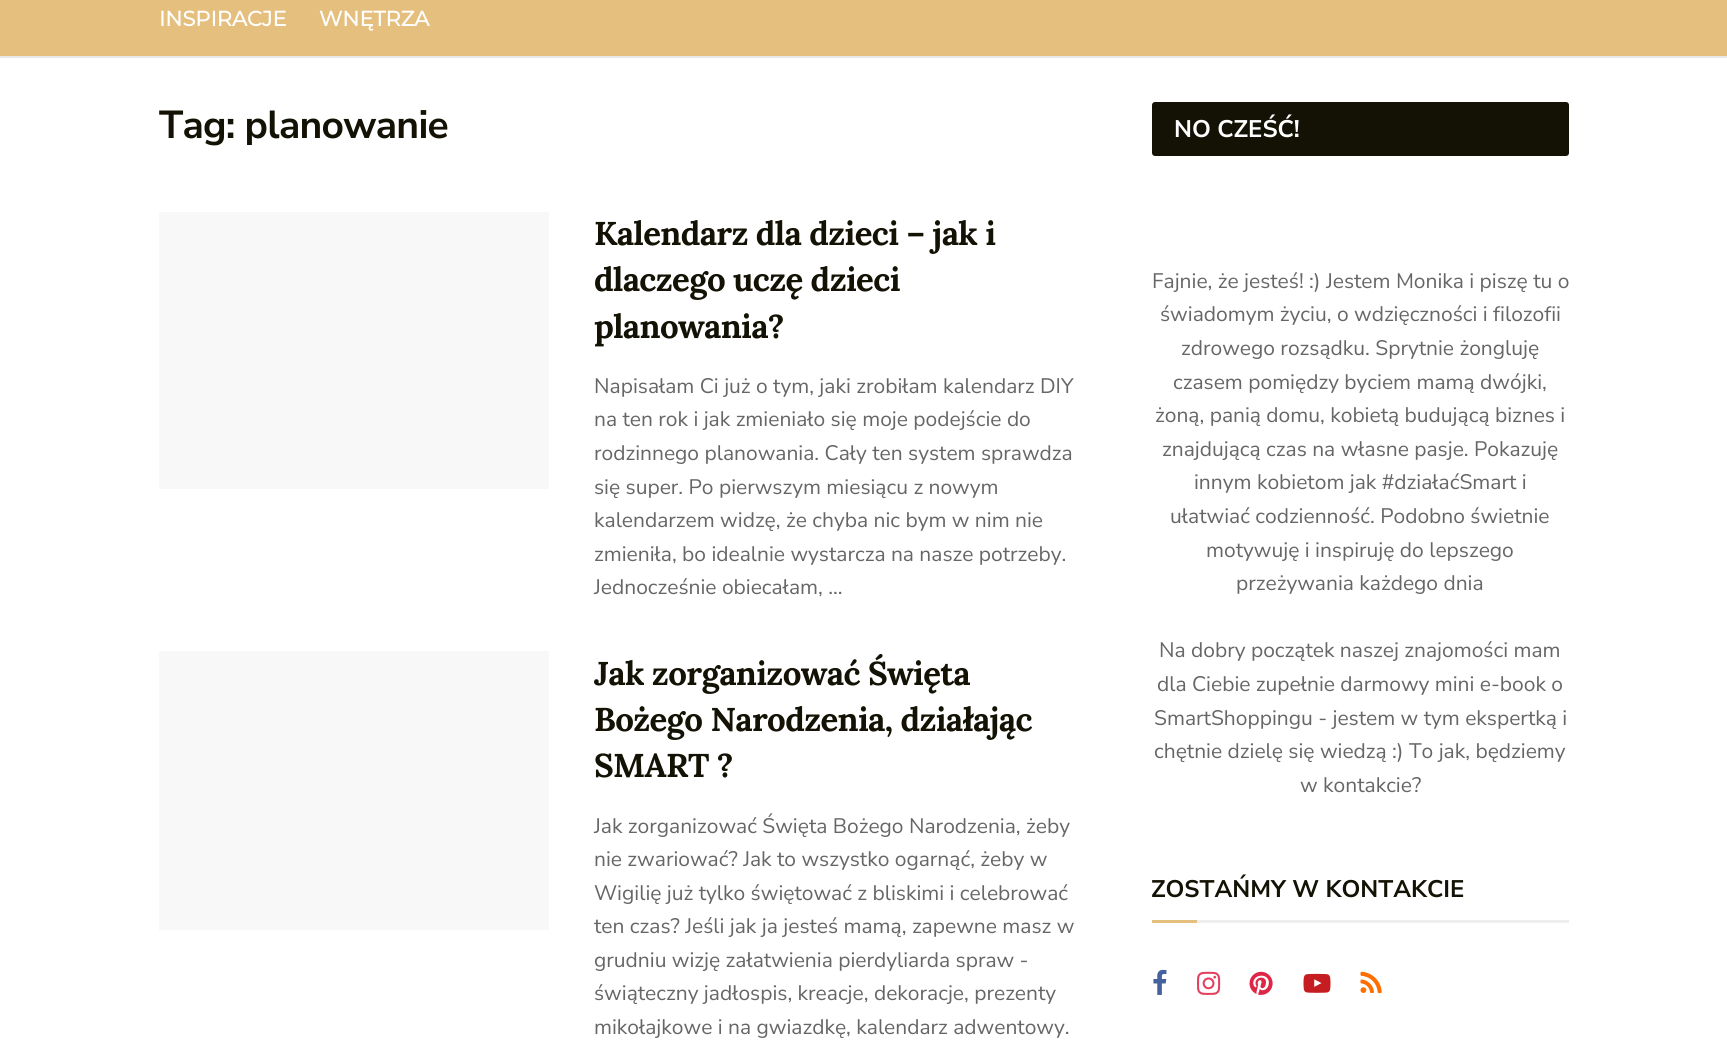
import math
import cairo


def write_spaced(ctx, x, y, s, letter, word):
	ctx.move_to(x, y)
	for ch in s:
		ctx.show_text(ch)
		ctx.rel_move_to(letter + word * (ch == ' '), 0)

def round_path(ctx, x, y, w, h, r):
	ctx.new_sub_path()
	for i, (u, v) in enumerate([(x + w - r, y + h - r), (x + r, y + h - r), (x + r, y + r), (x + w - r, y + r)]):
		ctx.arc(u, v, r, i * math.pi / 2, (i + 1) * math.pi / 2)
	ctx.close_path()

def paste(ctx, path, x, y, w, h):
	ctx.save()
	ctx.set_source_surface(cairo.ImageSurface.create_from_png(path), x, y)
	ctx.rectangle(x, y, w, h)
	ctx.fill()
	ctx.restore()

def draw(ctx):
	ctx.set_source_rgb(1, 1, 1)
	ctx.paint()
	ctx.set_source_rgb(0.898, 0.749, 0.494)
	ctx.rectangle(0, 0, 1727, 56)
	ctx.fill()
	ctx.set_source_rgb(0.91, 0.91, 0.91)
	ctx.rectangle(0, 56, 1727, 2)
	ctx.fill()
	ctx.select_font_face('Montserrat', cairo.FONT_SLANT_NORMAL, cairo.FONT_WEIGHT_BOLD)
	ctx.set_font_size(21)
	ctx.set_source_rgb(1, 1, 1)
	ctx.move_to(159, 26)
	ctx.show_text('INSPIRACJE')
	ctx.move_to(319, 26)
	ctx.show_text('WNĘTRZA')
	ctx.select_font_face('Nunito Sans', cairo.FONT_SLANT_NORMAL, cairo.FONT_WEIGHT_BOLD)
	ctx.set_font_size(39)
	ctx.set_source_rgb(0.078, 0.071, 0.016)
	write_spaced(ctx, 159, 138, 'Tag: planowanie', -0.75, 0)
	ctx.set_source_rgb(0.969, 0.969, 0.969)
	ctx.rectangle(159, 212, 390, 277)
	ctx.fill()
	ctx.select_font_face('Lora', cairo.FONT_SLANT_NORMAL, cairo.FONT_WEIGHT_BOLD)
	ctx.set_font_size(33)
	ctx.set_source_rgb(0.078, 0.071, 0.016)
	for x, y, s in [
		(594, 245, 'Kalendarz dla dzieci – jak i'),
		(594, 291, 'dlaczego uczę dzieci'),
		(594, 338, 'planowania?'),
	]:
		write_spaced(ctx, x, y, s, -0.65, 0)
	ctx.select_font_face('Nunito Sans')
	ctx.set_font_size(21)
	ctx.set_source_rgb(0.4, 0.4, 0.4)
	for x, y, s in [
		(594, 393, 'Napisałam Ci już o tym, jaki zrobiłam kalendarz DIY'),
		(594, 426, 'na ten rok i jak zmieniało się moje podejście do'),
		(594, 460, 'rodzinnego planowania. Cały ten system sprawdza'),
		(594, 494, 'się super. Po pierwszym miesiącu z nowym'),
		(594, 527, 'kalendarzem widzę, że chyba nic bym w nim nie'),
		(594, 561, 'zmieniła, bo idealnie wystarcza na nasze potrzeby.'),
		(594, 594, 'Jednocześnie obiecałam, ...'),
	]:
		ctx.move_to(x, y)
		ctx.show_text(s)
	ctx.set_source_rgb(0.969, 0.969, 0.969)
	ctx.rectangle(159, 651, 390, 279)
	ctx.fill()
	ctx.select_font_face('Lora', cairo.FONT_SLANT_NORMAL, cairo.FONT_WEIGHT_BOLD)
	ctx.set_font_size(33)
	ctx.set_source_rgb(0.078, 0.071, 0.016)
	for x, y, s in [
		(594, 685, 'Jak zorganizować Święta'),
		(594, 731, 'Bożego Narodzenia, działając'),
		(594, 777, 'SMART ?'),
	]:
		write_spaced(ctx, x, y, s, -0.65, 0)
	ctx.select_font_face('Nunito Sans')
	ctx.set_font_size(21)
	ctx.set_source_rgb(0.4, 0.4, 0.4)
	for x, y, s in [
		(594, 833, 'Jak zorganizować Święta Bożego Narodzenia, żeby'),
		(594, 866, 'nie zwariować? Jak to wszystko ogarnąć, żeby w'),
		(594, 900, 'Wigilię już tylko świętować z bliskimi i celebrować'),
		(594, 933, 'ten czas? Jeśli jak ja jesteś mamą, zapewne masz w'),
		(594, 967, 'grudniu wizję załatwienia pierdyliarda spraw -'),
		(594, 1000, 'świąteczny jadłospis, kreacje, dekoracje, prezenty'),
		(594, 1034, 'mikołajkowe i na gwiazdkę, kalendarz adwentowy.'),
	]:
		ctx.move_to(x, y)
		ctx.show_text(s)
	ctx.set_source_rgb(0.078, 0.071, 0.016)
	round_path(ctx, 1152, 102, 417, 54, 3)
	ctx.fill()
	ctx.select_font_face('Nunito Sans', cairo.FONT_SLANT_NORMAL, cairo.FONT_WEIGHT_BOLD)
	ctx.set_font_size(24)
	ctx.set_source_rgb(1, 1, 1)
	ctx.move_to(1174, 137)
	ctx.show_text('NO CZEŚĆ!')
	ctx.select_font_face('Nunito Sans')
	ctx.set_font_size(21)
	ctx.set_source_rgb(0.4, 0.4, 0.4)
	for x, y, s in [
		(1152, 288, 'Fajnie, że jesteś! :) Jestem Monika i piszę tu o'),
		(1160, 321, 'świadomym życiu, o wdzięczności i filozofii'),
		(1181, 355, 'zdrowego rozsądku. Sprytnie żongluję'),
		(1173, 389, 'czasem pomiędzy byciem mamą dwójki,'),
		(1155, 422, 'żoną, panią domu, kobietą budującą biznes i'),
		(1162, 456, 'znajdującą czas na własne pasje. Pokazuję'),
		(1194, 489, 'innym kobietom jak #działaćSmart i'),
		(1170, 523, 'ułatwiać codzienność. Podobno świetnie'),
		(1206, 557, 'motywuję i inspiruję do lepszego'),
		(1236, 590, 'przeżywania każdego dnia'),
		(1159, 657, 'Na dobry początek naszej znajomości mam'),
		(1157, 691, 'dla Ciebie zupełnie darmowy mini e-book o'),
		(1154, 725, 'SmartShoppingu - jestem w tym ekspertką i'),
		(1154, 758, 'chętnie dzielę się wiedzą :) To jak, będziemy'),
		(1300, 792, 'w kontakcie?'),
	]:
		ctx.move_to(x, y)
		ctx.show_text(s)
	ctx.set_source_rgb(0.933, 0.933, 0.933)
	ctx.rectangle(1197, 920, 372, 3)
	ctx.fill()
	ctx.select_font_face('Nunito Sans', cairo.FONT_SLANT_NORMAL, cairo.FONT_WEIGHT_BOLD)
	ctx.set_font_size(24)
	ctx.set_source_rgb(0.078, 0.071, 0.016)
	ctx.move_to(1151, 897)
	ctx.show_text('ZOSTAŃMY W KONTAKCIE')
	ctx.set_source_rgb(0.898, 0.749, 0.494)
	ctx.rectangle(1152, 920, 45, 3)
	ctx.fill()
	paste(ctx, 'media/1.png', 1153, 969, 14, 26)
	paste(ctx, 'media/2.png', 1197, 971, 24, 24)
	paste(ctx, 'media/3.png', 1249, 971, 24, 24)
	paste(ctx, 'media/4.png', 1303, 973, 28, 20)
	paste(ctx, 'media/5.png', 1360, 971, 22, 22)


surface = cairo.ImageSurface(cairo.FORMAT_RGB24, 1727, 1048)
ctx = cairo.Context(surface)
options = cairo.FontOptions()
options.set_hint_metrics(cairo.HINT_METRICS_OFF)
options.set_hint_style(cairo.HINT_STYLE_NONE)
ctx.set_font_options(options)
ctx.set_miter_limit(4)
draw(ctx)
surface.write_to_png('image.png')
